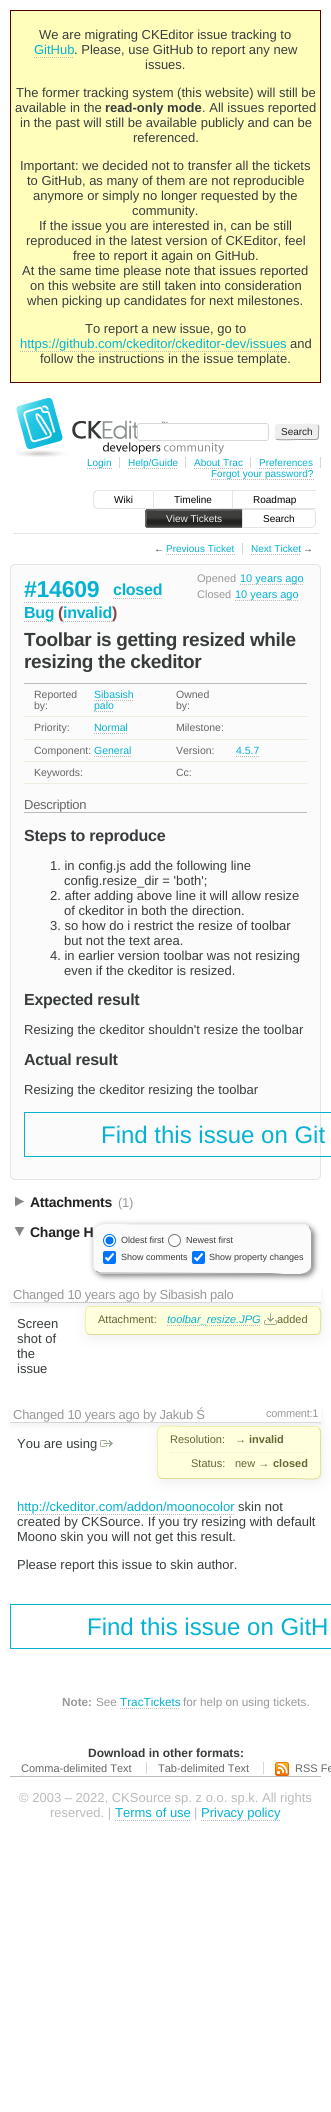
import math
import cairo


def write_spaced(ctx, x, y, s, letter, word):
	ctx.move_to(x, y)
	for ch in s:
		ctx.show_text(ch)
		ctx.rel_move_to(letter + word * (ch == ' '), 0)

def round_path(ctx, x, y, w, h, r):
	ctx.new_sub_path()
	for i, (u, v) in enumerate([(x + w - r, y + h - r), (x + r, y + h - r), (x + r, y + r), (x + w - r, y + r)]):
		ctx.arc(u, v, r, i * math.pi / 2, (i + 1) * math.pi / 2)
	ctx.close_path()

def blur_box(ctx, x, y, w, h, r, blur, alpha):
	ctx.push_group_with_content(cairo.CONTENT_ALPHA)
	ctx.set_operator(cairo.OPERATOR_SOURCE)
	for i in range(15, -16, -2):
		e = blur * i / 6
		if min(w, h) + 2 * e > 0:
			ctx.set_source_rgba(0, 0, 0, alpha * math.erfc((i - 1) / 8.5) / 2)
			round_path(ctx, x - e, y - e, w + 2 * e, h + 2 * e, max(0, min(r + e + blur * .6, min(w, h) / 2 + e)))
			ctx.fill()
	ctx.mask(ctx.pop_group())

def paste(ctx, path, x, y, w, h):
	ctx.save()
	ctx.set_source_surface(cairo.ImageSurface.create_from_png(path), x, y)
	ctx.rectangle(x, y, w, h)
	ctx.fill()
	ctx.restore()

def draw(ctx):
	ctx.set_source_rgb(1, 1, 1)
	ctx.paint()
	ctx.set_source_rgb(1, 1, 0.733)
	ctx.rectangle(10.5, 10.5, 310, 372)
	ctx.fill_preserve()
	ctx.set_source_rgb(0.333, 0, 0)
	ctx.set_line_width(1)
	ctx.stroke()
	ctx.select_font_face('Liberation Sans')
	ctx.set_font_size(13)
	ctx.set_source_rgb(0.22, 0.235, 0.239)
	ctx.move_to(39, 39)
	ctx.show_text('We are migrating CKEditor issue tracking to')
	ctx.set_source_rgb(0.02, 0.698, 0.824)
	ctx.move_to(34, 54)
	ctx.show_text('GitHub')
	ctx.new_path()
	ctx.move_to(34, 57.5)
	ctx.line_to(74, 57.5)
	ctx.set_source_rgb(0.733, 0.733, 0.733)
	ctx.set_dash([1, 1])
	ctx.stroke()
	ctx.set_source_rgb(0.22, 0.235, 0.239)
	for x, y, s in [
		(74, 54, '. Please, use GitHub to report any new'),
		(145, 69, 'issues.'),
		(16, 97, 'The former tracking system (this website) will still be'),
		(15, 112, 'available in the'),
	]:
		ctx.move_to(x, y)
		ctx.show_text(s)
	ctx.select_font_face('Liberation Sans', cairo.FONT_SLANT_NORMAL, cairo.FONT_WEIGHT_BOLD)
	ctx.move_to(105, 112)
	ctx.show_text('read-only mode')
	ctx.select_font_face('Liberation Sans')
	for x, y, s in [
		(202, 112, '. All issues reported'),
		(20, 127, 'in the past will still be available publicly and can be'),
		(133, 142, 'referenced.'),
		(20, 170, 'Important: we decided not to transfer all the tickets'),
		(27, 185, 'to GitHub, as many of them are not reproducible'),
		(33, 200, 'anymore or simply no longer requested by the'),
		(132, 215, 'community.'),
		(39, 230, 'If the issue you are interested in, can be still'),
		(26, 245, 'reproduced in the latest version of CKEditor, feel'),
		(73, 260, 'free to report it again on GitHub.'),
		(22, 275, 'At the same time please note that issues reported'),
		(30, 290, 'on this website are still taken into consideration'),
		(27, 305, 'when picking up candidates for next milestones.'),
		(85, 333, 'To report a new issue, go to'),
	]:
		ctx.move_to(x, y)
		ctx.show_text(s)
	ctx.set_source_rgb(0.02, 0.698, 0.824)
	ctx.move_to(20, 348)
	ctx.show_text('https://github.com/ckeditor/ckeditor-dev/issues')
	ctx.new_path()
	ctx.move_to(20, 351.5)
	ctx.line_to(286, 351.5)
	ctx.set_source_rgb(0.733, 0.733, 0.733)
	ctx.stroke()
	ctx.set_source_rgb(0.22, 0.235, 0.239)
	ctx.move_to(290, 348)
	ctx.show_text('and')
	ctx.move_to(40, 363)
	ctx.show_text('follow the instructions in the issue template.')
	paste(ctx, 'media/1.png', 15, 398, 209, 59)
	ctx.set_source_rgb(1, 1, 1)
	round_path(ctx, 137.5, 423.5, 131, 17, 2.5)
	ctx.fill_preserve()
	ctx.set_source_rgb(0.843, 0.843, 0.843)
	ctx.set_dash([])
	ctx.stroke()
	ctx.set_source_rgb(0.933, 0.933, 0.933)
	round_path(ctx, 275, 424, 44, 16, 3)
	ctx.fill()
	ctx.new_path()
	ctx.move_to(318, 425)
	ctx.curve_to(319.5, 427, 318.5, 430, 318.5, 432)
	ctx.curve_to(318.5, 440.5, 319, 439.5, 309.5, 439.5)
	ctx.line_to(297, 439.5)
	ctx.curve_to(294, 439.5, 278, 440.5, 276, 439)
	ctx.set_source_rgb(0.624, 0.624, 0.624)
	ctx.stroke()
	ctx.new_path()
	ctx.move_to(276, 439)
	ctx.curve_to(274.5, 437, 275.5, 434, 275.5, 432)
	ctx.curve_to(275.5, 423.5, 275, 424.5, 284.5, 424.5)
	ctx.line_to(297, 424.5)
	ctx.curve_to(300, 424.5, 316, 423.5, 318, 425)
	ctx.set_source_rgb(0.933, 0.933, 0.933)
	ctx.stroke()
	ctx.set_font_size(10)
	ctx.set_source_rgb(0.133, 0.133, 0.133)
	ctx.move_to(281, 435)
	ctx.show_text('Search')
	ctx.set_source_rgb(0.843, 0.843, 0.843)
	ctx.rectangle(119, 457, 1, 11)
	ctx.fill()
	ctx.new_path()
	ctx.move_to(87, 468.5)
	ctx.line_to(112, 468.5)
	ctx.set_source_rgb(0.733, 0.733, 0.733)
	ctx.set_dash([1, 1])
	ctx.stroke()
	ctx.set_source_rgb(0.02, 0.698, 0.824)
	ctx.move_to(87, 466)
	ctx.show_text('Login')
	ctx.set_source_rgb(0.843, 0.843, 0.843)
	ctx.rectangle(185, 457, 1, 11)
	ctx.fill()
	ctx.new_path()
	ctx.move_to(128, 468.5)
	ctx.line_to(178, 468.5)
	ctx.set_source_rgb(0.733, 0.733, 0.733)
	ctx.stroke()
	ctx.set_source_rgb(0.02, 0.698, 0.824)
	ctx.move_to(128, 466)
	ctx.show_text('Help/Guide')
	ctx.set_source_rgb(0.843, 0.843, 0.843)
	ctx.rectangle(250, 457, 1, 11)
	ctx.fill()
	ctx.set_source_rgb(0.02, 0.698, 0.824)
	ctx.move_to(194, 466)
	ctx.show_text('About Trac')
	ctx.new_path()
	ctx.move_to(194, 468.5)
	ctx.line_to(243, 468.5)
	ctx.set_source_rgb(0.733, 0.733, 0.733)
	ctx.stroke()
	ctx.set_source_rgb(0.843, 0.843, 0.843)
	ctx.rectangle(320, 457, 1, 11)
	ctx.fill()
	ctx.set_source_rgb(0.02, 0.698, 0.824)
	ctx.move_to(259, 466)
	ctx.show_text('Preferences')
	ctx.new_path()
	ctx.move_to(259, 468.5)
	ctx.line_to(313, 468.5)
	ctx.set_source_rgb(0.733, 0.733, 0.733)
	ctx.stroke()
	ctx.new_path()
	ctx.move_to(211, 479.5)
	ctx.line_to(314, 479.5)
	ctx.stroke()
	ctx.set_source_rgb(0.02, 0.698, 0.824)
	ctx.move_to(211, 477)
	ctx.show_text('Forgot your password?')
	ctx.set_source_rgb(0.894, 0.894, 0.894)
	ctx.rectangle(13, 533, 306, 1)
	ctx.fill()
	ctx.set_fill_rule(cairo.FILL_RULE_EVEN_ODD)
	ctx.new_path()
	ctx.move_to(98, 490)
	ctx.line_to(153, 490)
	ctx.line_to(153, 509)
	ctx.line_to(98, 509)
	ctx.curve_to(95, 509, 93, 507, 93, 504)
	ctx.line_to(93, 495)
	ctx.curve_to(93, 492, 95, 490, 98, 490)
	ctx.close_path()
	ctx.move_to(98, 491)
	ctx.line_to(153, 491)
	ctx.line_to(153, 508)
	ctx.line_to(98, 508)
	ctx.curve_to(96, 508, 94, 506, 94, 504)
	ctx.line_to(94, 495)
	ctx.curve_to(94, 493, 96, 491, 98, 491)
	ctx.close_path()
	ctx.fill()
	ctx.set_source_rgb(0, 0, 0)
	ctx.move_to(114, 503)
	ctx.show_text('Wiki')
	ctx.set_source_rgb(0.894, 0.894, 0.894)
	ctx.rectangle(153, 490, 163, 1)
	ctx.rectangle(153, 508, 163, 1)
	ctx.rectangle(153, 490, 1, 19)
	ctx.fill()
	ctx.set_source_rgb(0, 0, 0)
	ctx.move_to(174, 503)
	ctx.show_text('Timeline')
	ctx.set_source_rgb(0.894, 0.894, 0.894)
	ctx.rectangle(232, 490, 1, 19)
	ctx.fill()
	ctx.set_source_rgb(0, 0, 0)
	ctx.move_to(253, 503)
	ctx.show_text('Roadmap')
	ctx.set_source_rgb(0.4, 0.4, 0.4)
	ctx.rectangle(145, 509, 97, 1)
	ctx.rectangle(145, 527, 97, 1)
	ctx.rectangle(145, 509, 1, 19)
	ctx.fill()
	ctx.set_source_rgb(0, 0, 0)
	ctx.rectangle(146, 510, 96, 17)
	ctx.fill()
	paste(ctx, 'media/2.png', 146, 510, 96, 17)
	ctx.set_source_rgb(0.933, 0.933, 0.933)
	ctx.move_to(166, 522)
	ctx.show_text('View Tickets')
	ctx.new_path()
	ctx.move_to(242.5, 509.5)
	ctx.line_to(311, 509.5)
	ctx.curve_to(313.5, 509.5, 315.5, 511.5, 315.5, 514)
	ctx.line_to(315.5, 523)
	ctx.curve_to(315.5, 525.5, 313.5, 527.5, 311, 527.5)
	ctx.line_to(242.5, 527.5)
	ctx.close_path()
	ctx.set_source_rgb(0.894, 0.894, 0.894)
	ctx.set_dash([])
	ctx.stroke()
	ctx.set_source_rgb(0, 0, 0)
	ctx.move_to(263, 522)
	ctx.show_text('Search')
	ctx.set_source_rgb(0.843, 0.843, 0.843)
	ctx.rectangle(242, 543, 1, 11)
	ctx.fill()
	ctx.set_source_rgb(0.22, 0.235, 0.239)
	ctx.move_to(154, 552)
	ctx.show_text('←')
	ctx.new_path()
	ctx.move_to(166, 554.5)
	ctx.line_to(235, 554.5)
	ctx.set_source_rgb(0.733, 0.733, 0.733)
	ctx.set_dash([1, 1])
	ctx.stroke()
	ctx.set_source_rgb(0.02, 0.698, 0.824)
	ctx.move_to(166, 552)
	ctx.show_text('Previous Ticket')
	ctx.move_to(251, 552)
	ctx.show_text('Next Ticket')
	ctx.new_path()
	ctx.move_to(251, 554.5)
	ctx.line_to(301, 554.5)
	ctx.set_source_rgb(0.733, 0.733, 0.733)
	ctx.stroke()
	ctx.set_source_rgb(0.22, 0.235, 0.239)
	ctx.move_to(303, 552)
	ctx.show_text('→')
	ctx.set_source_rgb(0.984, 0.984, 0.984)
	round_path(ctx, 10.5, 564.5, 310, 615, 4.5)
	ctx.fill_preserve()
	ctx.set_source_rgb(0.894, 0.894, 0.894)
	ctx.set_dash([])
	ctx.stroke()
	ctx.select_font_face('Liberation Sans', cairo.FONT_SLANT_NORMAL, cairo.FONT_WEIGHT_BOLD)
	ctx.set_font_size(23)
	ctx.set_source_rgb(0.02, 0.698, 0.824)
	write_spaced(ctx, 24, 597, '#14609', -0.25, 0)
	ctx.new_path()
	ctx.move_to(24, 602.5)
	ctx.line_to(100, 602.5)
	ctx.set_source_rgb(0.733, 0.733, 0.733)
	ctx.set_dash([1, 1])
	ctx.stroke()
	ctx.set_font_size(16)
	ctx.set_source_rgb(0.02, 0.698, 0.824)
	write_spaced(ctx, 113, 595, 'closed', -0.25, 0)
	ctx.new_path()
	ctx.move_to(113, 598.5)
	ctx.line_to(162, 598.5)
	ctx.set_source_rgb(0.733, 0.733, 0.733)
	ctx.stroke()
	ctx.new_path()
	ctx.move_to(24, 621.5)
	ctx.line_to(54, 621.5)
	ctx.stroke()
	ctx.set_source_rgb(0.02, 0.698, 0.824)
	write_spaced(ctx, 24, 618, 'Bug', -0.25, 0)
	ctx.set_source_rgb(0.533, 0.267, 0.267)
	write_spaced(ctx, 58, 618, '(', -0.25, 0)
	ctx.new_path()
	ctx.move_to(63, 621.5)
	ctx.line_to(112, 621.5)
	ctx.set_source_rgb(0.733, 0.733, 0.733)
	ctx.stroke()
	ctx.set_source_rgb(0.02, 0.698, 0.824)
	write_spaced(ctx, 63, 618, 'invalid', -0.25, 0)
	ctx.set_source_rgb(0.533, 0.267, 0.267)
	write_spaced(ctx, 112, 618, ')', -0.25, 0)
	ctx.select_font_face('Liberation Sans')
	ctx.set_font_size(11)
	ctx.set_source_rgb(0.6, 0.6, 0.6)
	ctx.move_to(197, 582)
	ctx.show_text('Opened')
	ctx.new_path()
	ctx.move_to(240, 584.5)
	ctx.line_to(304, 584.5)
	ctx.set_source_rgb(0.733, 0.733, 0.733)
	ctx.stroke()
	ctx.set_source_rgb(0.02, 0.698, 0.824)
	ctx.move_to(240, 582)
	ctx.show_text('10 years ago')
	ctx.set_source_rgb(0.6, 0.6, 0.6)
	ctx.move_to(197, 598)
	ctx.show_text('Closed')
	ctx.new_path()
	ctx.move_to(235, 600.5)
	ctx.line_to(299, 600.5)
	ctx.set_source_rgb(0.733, 0.733, 0.733)
	ctx.stroke()
	ctx.set_source_rgb(0.02, 0.698, 0.824)
	ctx.move_to(235, 598)
	ctx.show_text('10 years ago')
	ctx.select_font_face('Liberation Sans', cairo.FONT_SLANT_NORMAL, cairo.FONT_WEIGHT_BOLD)
	ctx.set_font_size(19)
	ctx.set_source_rgb(0.22, 0.235, 0.239)
	write_spaced(ctx, 24, 646, 'Toolbar is getting resized while', -0.35, 0)
	write_spaced(ctx, 24, 668, 'resizing the ckeditor', -0.35, 0)
	ctx.set_source_rgb(0.733, 0.733, 0.733)
	ctx.rectangle(24, 683, 283, 1)
	ctx.fill()
	ctx.set_source_rgb(0.933, 0.933, 0.867)
	ctx.rectangle(24, 716, 284, 1)
	ctx.fill()
	ctx.select_font_face('Liberation Sans')
	ctx.set_font_size(10.5)
	ctx.set_source_rgb(0.4, 0.4, 0.4)
	ctx.move_to(34, 698)
	ctx.show_text('Reported')
	ctx.move_to(34, 709)
	ctx.show_text('by:')
	ctx.set_source_rgb(0.02, 0.698, 0.824)
	ctx.move_to(94, 698)
	ctx.show_text('Sibasish')
	ctx.new_path()
	ctx.move_to(94, 700.5)
	ctx.line_to(133, 700.5)
	ctx.move_to(94, 711.5)
	ctx.line_to(114, 711.5)
	ctx.set_source_rgb(0.733, 0.733, 0.733)
	ctx.stroke()
	ctx.set_source_rgb(0.02, 0.698, 0.824)
	ctx.move_to(94, 709)
	ctx.show_text('palo')
	ctx.set_source_rgb(0.4, 0.4, 0.4)
	ctx.move_to(176, 698)
	ctx.show_text('Owned')
	ctx.move_to(176, 709)
	ctx.show_text('by:')
	ctx.set_source_rgb(0.933, 0.933, 0.867)
	ctx.rectangle(24, 739, 284, 1)
	ctx.fill()
	ctx.set_source_rgb(0.4, 0.4, 0.4)
	ctx.move_to(34, 731)
	ctx.show_text('Priority:')
	ctx.set_source_rgb(0.02, 0.698, 0.824)
	ctx.move_to(94, 731)
	ctx.show_text('Normal')
	ctx.new_path()
	ctx.move_to(94, 733.5)
	ctx.line_to(128, 733.5)
	ctx.set_source_rgb(0.733, 0.733, 0.733)
	ctx.stroke()
	ctx.set_source_rgb(0.4, 0.4, 0.4)
	ctx.move_to(176, 731)
	ctx.show_text('Milestone:')
	ctx.set_source_rgb(0.933, 0.933, 0.867)
	ctx.rectangle(24, 761, 284, 1)
	ctx.fill()
	ctx.set_source_rgb(0.4, 0.4, 0.4)
	ctx.move_to(34, 754)
	ctx.show_text('Component:')
	ctx.set_source_rgb(0.02, 0.698, 0.824)
	ctx.move_to(94, 754)
	ctx.show_text('General')
	ctx.new_path()
	ctx.move_to(94, 756.5)
	ctx.line_to(131, 756.5)
	ctx.set_source_rgb(0.733, 0.733, 0.733)
	ctx.stroke()
	ctx.set_source_rgb(0.4, 0.4, 0.4)
	ctx.move_to(176, 754)
	ctx.show_text('Version:')
	ctx.set_source_rgb(0.02, 0.698, 0.824)
	ctx.move_to(236, 754)
	ctx.show_text('4.5.7')
	ctx.new_path()
	ctx.move_to(236, 756.5)
	ctx.line_to(259, 756.5)
	ctx.set_source_rgb(0.733, 0.733, 0.733)
	ctx.stroke()
	ctx.set_source_rgb(0.933, 0.933, 0.867)
	ctx.rectangle(24, 783, 284, 1)
	ctx.fill()
	ctx.set_source_rgb(0.4, 0.4, 0.4)
	ctx.move_to(34, 776)
	ctx.show_text('Keywords:')
	ctx.move_to(176, 776)
	ctx.show_text('Cc:')
	ctx.set_source_rgb(0.733, 0.733, 0.733)
	ctx.rectangle(24, 812, 283, 1)
	ctx.fill()
	ctx.set_font_size(13)
	ctx.set_source_rgb(0.4, 0.4, 0.4)
	write_spaced(ctx, 24, 809, 'Description', -0.25, 0)
	ctx.select_font_face('Liberation Sans', cairo.FONT_SLANT_NORMAL, cairo.FONT_WEIGHT_BOLD)
	ctx.set_font_size(16)
	ctx.set_source_rgb(0.22, 0.235, 0.239)
	write_spaced(ctx, 24, 841, 'Steps to reproduce', -0.25, 0)
	ctx.select_font_face('Liberation Sans')
	ctx.set_font_size(13)
	for x, y, s in [
		(50, 870, '1. in config.js add the following line'),
		(64, 885, 'config.resize_dir = \'both\';'),
		(50, 900, '2. after adding above line it will allow resize'),
		(64, 915, 'of ckeditor in both the direction.'),
		(50, 930, '3. so how do i restrict the resize of toolbar'),
		(64, 945, 'but not the text area.'),
		(50, 960, '4. in earlier version toolbar was not resizing'),
		(64, 975, 'even if the ckeditor is resized.'),
	]:
		ctx.move_to(x, y)
		ctx.show_text(s)
	ctx.select_font_face('Liberation Sans', cairo.FONT_SLANT_NORMAL, cairo.FONT_WEIGHT_BOLD)
	ctx.set_font_size(16)
	write_spaced(ctx, 24, 1005, 'Expected result', -0.25, 0)
	ctx.select_font_face('Liberation Sans')
	ctx.set_font_size(13)
	ctx.move_to(24, 1034)
	ctx.show_text('Resizing the ckeditor shouldn\'t resize the toolbar')
	ctx.select_font_face('Liberation Sans', cairo.FONT_SLANT_NORMAL, cairo.FONT_WEIGHT_BOLD)
	ctx.set_font_size(16)
	write_spaced(ctx, 24, 1065, 'Actual result', -0.25, 0)
	ctx.select_font_face('Liberation Sans')
	ctx.set_font_size(13)
	ctx.move_to(24, 1094)
	ctx.show_text('Resizing the ckeditor resizing the toolbar')
	ctx.rectangle(24.5, 1112.5, 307, 44)
	ctx.set_source_rgb(0.02, 0.698, 0.824)
	ctx.set_dash([])
	ctx.stroke()
	ctx.set_font_size(24)
	ctx.move_to(101, 1143)
	ctx.show_text('Find this issue on Git')
	paste(ctx, 'media/3.png', 15, 1196, 9, 11)
	ctx.select_font_face('Liberation Sans', cairo.FONT_SLANT_NORMAL, cairo.FONT_WEIGHT_BOLD)
	ctx.set_font_size(14)
	ctx.set_source_rgb(0.133, 0.133, 0.133)
	write_spaced(ctx, 30, 1207, 'Attachments', -0.25, 0)
	ctx.select_font_face('Liberation Sans')
	ctx.set_font_size(13)
	ctx.set_source_rgb(0.6, 0.6, 0.6)
	write_spaced(ctx, 118, 1207, '(1)', -0.25, 0)
	paste(ctx, 'media/4.png', 14, 1227, 11, 9)
	ctx.select_font_face('Liberation Sans', cairo.FONT_SLANT_NORMAL, cairo.FONT_WEIGHT_BOLD)
	ctx.set_font_size(14)
	ctx.set_source_rgb(0.133, 0.133, 0.133)
	write_spaced(ctx, 30, 1237, 'Change H', -0.25, 0)
	ctx.set_source_rgb(0.467, 0.467, 0.467)
	blur_box(ctx, 95, 1226, 219, 50, 9, 3, 1)
	ctx.set_source_rgb(0.984, 0.984, 0.984)
	round_path(ctx, 93, 1224, 219, 50, 9)
	ctx.fill()
	ctx.new_path()
	ctx.move_to(309, 1227)
	ctx.curve_to(312, 1230, 311.5, 1234.5, 311.5, 1238.5)
	ctx.line_to(311.5, 1266.5)
	ctx.curve_to(309, 1279.5, 281.5, 1273.5, 269.5, 1273.5)
	ctx.line_to(99.5, 1273)
	ctx.line_to(96, 1271)
	ctx.set_source_rgb(0.624, 0.624, 0.624)
	ctx.stroke()
	ctx.new_path()
	ctx.move_to(96, 1271)
	ctx.curve_to(93, 1268, 93.5, 1263.5, 93.5, 1259.5)
	ctx.line_to(93.5, 1231.5)
	ctx.curve_to(96, 1218.5, 123.5, 1224.5, 135.5, 1224.5)
	ctx.line_to(305.5, 1225)
	ctx.line_to(309, 1227)
	ctx.set_source_rgb(0.933, 0.933, 0.933)
	ctx.stroke()
	ctx.set_source_rgb(1, 1, 1)
	ctx.arc(109.5, 1240.5, 6, 0, 2 * math.pi)
	ctx.fill_preserve()
	ctx.set_source_rgb(0, 0.459, 1)
	ctx.stroke()
	ctx.arc(109.5, 1240.5, 4, 0, 2 * math.pi)
	ctx.fill()
	ctx.select_font_face('Liberation Sans')
	ctx.set_font_size(9)
	ctx.set_source_rgb(0.22, 0.235, 0.239)
	ctx.move_to(121, 1243)
	ctx.show_text('Oldest first')
	ctx.set_source_rgb(1, 1, 1)
	ctx.new_path()
	ctx.arc(174.5, 1240.5, 6, 0, 2 * math.pi)
	ctx.fill_preserve()
	ctx.set_source_rgb(0.463, 0.463, 0.463)
	ctx.stroke()
	ctx.set_source_rgb(0.22, 0.235, 0.239)
	ctx.move_to(186, 1243)
	ctx.show_text('Newest first')
	ctx.set_source_rgb(0, 0.459, 1)
	round_path(ctx, 103, 1251, 13, 13, 2)
	ctx.fill()
	ctx.new_path()
	ctx.move_to(105.5, 1257.5)
	ctx.line_to(108, 1260)
	ctx.line_to(113.5, 1253.5)
	ctx.set_source_rgb(1, 1, 1)
	ctx.set_line_width(2.1)
	ctx.stroke()
	ctx.set_source_rgb(0.22, 0.235, 0.239)
	ctx.move_to(121, 1260)
	ctx.show_text('Show comments')
	ctx.set_source_rgb(0, 0.459, 1)
	round_path(ctx, 192, 1251, 13, 13, 2)
	ctx.fill()
	ctx.new_path()
	ctx.move_to(194.5, 1257.5)
	ctx.line_to(197, 1260)
	ctx.line_to(202.5, 1253.5)
	ctx.set_source_rgb(1, 1, 1)
	ctx.stroke()
	ctx.set_source_rgb(0.22, 0.235, 0.239)
	ctx.move_to(209, 1260)
	ctx.show_text('Show property changes')
	ctx.save()
	ctx.new_path()
	ctx.move_to(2, 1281)
	ctx.line_to(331, 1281)
	ctx.line_to(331, 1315)
	ctx.line_to(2, 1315)
	ctx.close_path()
	ctx.move_to(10, 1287)
	ctx.line_to(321, 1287)
	ctx.line_to(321, 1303)
	ctx.line_to(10, 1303)
	ctx.close_path()
	ctx.clip()
	ctx.set_source_rgb(0.949, 0.949, 0.949)
	blur_box(ctx, 11, 1290, 311, 16, 0, 2.5, 1)
	ctx.restore()
	ctx.set_source_rgb(0.843, 0.843, 0.843)
	ctx.rectangle(10, 1302, 311, 1)
	ctx.fill()
	ctx.set_source_rgb(0.933, 0.933, 0.933)
	blur_box(ctx, 86, 1309, 236, 29, 5, 6.5, 1)
	ctx.set_font_size(13)
	ctx.set_source_rgb(0.6, 0.6, 0.6)
	write_spaced(ctx, 13, 1299, 'Changed 10 years ago by Sibasish palo', -0.25, 0)
	ctx.new_path()
	ctx.move_to(67, 1302.5)
	ctx.line_to(139, 1302.5)
	ctx.set_source_rgb(0.733, 0.733, 0.733)
	ctx.set_line_width(1)
	ctx.set_dash([1, 1])
	ctx.stroke()
	ctx.set_source_rgb(0.22, 0.235, 0.239)
	for x, y, s in [
		(17, 1328, 'Screen'),
		(17, 1343, 'shot of'),
		(17, 1358, 'the'),
		(17, 1373, 'issue'),
	]:
		ctx.move_to(x, y)
		ctx.show_text(s)
	ctx.set_source_rgb(1, 1, 0.867)
	round_path(ctx, 85, 1306, 236, 29, 5)
	ctx.fill()
	ctx.new_path()
	ctx.move_to(319, 1308)
	ctx.curve_to(322, 1310.5, 320.5, 1323, 320.5, 1326.5)
	ctx.curve_to(320.5, 1330, 320.5, 1334.5, 316, 1334.5)
	ctx.line_to(90, 1334.5)
	ctx.curve_to(89, 1334.5, 88, 1334, 87, 1333)
	ctx.set_source_rgb(0.867, 0.867, 0.6)
	ctx.set_dash([])
	ctx.stroke()
	ctx.new_path()
	ctx.move_to(87, 1333)
	ctx.curve_to(84, 1330.5, 85.5, 1318, 85.5, 1314.5)
	ctx.curve_to(85.5, 1311, 85.5, 1306.5, 90, 1306.5)
	ctx.line_to(316, 1306.5)
	ctx.curve_to(317, 1306.5, 318, 1307, 319, 1308)
	ctx.set_source_rgb(0.933, 0.933, 0.667)
	ctx.stroke()
	ctx.set_font_size(11)
	ctx.set_source_rgb(0.4, 0.4, 0.2)
	ctx.move_to(98, 1323)
	ctx.show_text('Attachment:')
	ctx.select_font_face('Liberation Sans', cairo.FONT_SLANT_ITALIC)
	ctx.set_source_rgb(0.02, 0.698, 0.824)
	ctx.move_to(167, 1323)
	ctx.show_text('toolbar_resize.JPG')
	ctx.new_path()
	ctx.move_to(167, 1325.5)
	ctx.line_to(261, 1325.5)
	ctx.set_source_rgb(0.733, 0.733, 0.733)
	ctx.set_dash([1, 1])
	ctx.stroke()
	paste(ctx, 'media/5.png', 264, 1313, 13, 12)
	ctx.select_font_face('Liberation Sans')
	ctx.set_source_rgb(0.4, 0.4, 0.2)
	ctx.move_to(277, 1323)
	ctx.show_text('added')
	ctx.save()
	ctx.new_path()
	ctx.move_to(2, 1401)
	ctx.line_to(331, 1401)
	ctx.line_to(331, 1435)
	ctx.line_to(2, 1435)
	ctx.close_path()
	ctx.move_to(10, 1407)
	ctx.line_to(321, 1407)
	ctx.line_to(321, 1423)
	ctx.line_to(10, 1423)
	ctx.close_path()
	ctx.clip()
	ctx.set_source_rgb(0.949, 0.949, 0.949)
	blur_box(ctx, 11, 1410, 311, 16, 0, 2.5, 1)
	ctx.restore()
	ctx.set_source_rgb(0.843, 0.843, 0.843)
	ctx.rectangle(10, 1422, 311, 1)
	ctx.fill()
	ctx.set_source_rgb(0.933, 0.933, 0.933)
	blur_box(ctx, 158, 1429, 164, 53, 5, 6.5, 1)
	ctx.set_font_size(13)
	ctx.set_source_rgb(0.6, 0.6, 0.6)
	write_spaced(ctx, 13, 1419, 'Changed 10 years ago by Jakub Ś', -0.25, 0)
	ctx.set_font_size(11)
	write_spaced(ctx, 266, 1417, 'comment:1', -0.25, 0)
	ctx.new_path()
	ctx.move_to(67, 1422.5)
	ctx.line_to(139, 1422.5)
	ctx.set_source_rgb(0.733, 0.733, 0.733)
	ctx.stroke()
	ctx.set_source_rgb(1, 1, 0.867)
	round_path(ctx, 157, 1426, 164, 53, 5)
	ctx.fill()
	ctx.new_path()
	ctx.move_to(319, 1428)
	ctx.curve_to(321.5, 1430.5, 320.5, 1436, 320.5, 1438.5)
	ctx.line_to(320.5, 1452.5)
	ctx.curve_to(320.5, 1485, 325.5, 1478.5, 290, 1478.5)
	ctx.line_to(162, 1478.5)
	ctx.curve_to(161, 1478.5, 160, 1478, 159, 1477)
	ctx.set_source_rgb(0.867, 0.867, 0.6)
	ctx.set_dash([])
	ctx.stroke()
	ctx.new_path()
	ctx.move_to(159, 1477)
	ctx.curve_to(156.5, 1474.5, 157.5, 1469, 157.5, 1466.5)
	ctx.line_to(157.5, 1452.5)
	ctx.curve_to(157.5, 1420, 152.5, 1426.5, 188, 1426.5)
	ctx.line_to(316, 1426.5)
	ctx.curve_to(317, 1426.5, 318, 1427, 319, 1428)
	ctx.set_source_rgb(0.933, 0.933, 0.667)
	ctx.stroke()
	ctx.set_source_rgb(0.4, 0.4, 0.2)
	ctx.move_to(170, 1443)
	ctx.show_text('Resolution:')
	ctx.move_to(235, 1443)
	ctx.show_text('→')
	ctx.select_font_face('Liberation Sans', cairo.FONT_SLANT_NORMAL, cairo.FONT_WEIGHT_BOLD)
	ctx.move_to(249, 1443)
	ctx.show_text('invalid')
	ctx.new_path()
	ctx.move_to(170, 1452.5)
	ctx.line_to(233, 1452.5)
	ctx.set_source_rgb(0.933, 0.933, 0.867)
	ctx.set_dash([1, 1])
	ctx.stroke()
	ctx.select_font_face('Liberation Sans')
	ctx.set_source_rgb(0.4, 0.4, 0.2)
	ctx.move_to(191, 1467)
	ctx.show_text('Status:')
	ctx.new_path()
	ctx.move_to(235, 1452.5)
	ctx.line_to(308, 1452.5)
	ctx.set_source_rgb(0.933, 0.933, 0.867)
	ctx.stroke()
	ctx.set_source_rgb(0.4, 0.4, 0.2)
	ctx.move_to(235, 1467)
	ctx.show_text('new →')
	ctx.select_font_face('Liberation Sans', cairo.FONT_SLANT_NORMAL, cairo.FONT_WEIGHT_BOLD)
	ctx.move_to(273, 1467)
	ctx.show_text('closed')
	ctx.select_font_face('Liberation Sans')
	ctx.set_font_size(13)
	ctx.set_source_rgb(0.22, 0.235, 0.239)
	ctx.move_to(17, 1448)
	ctx.show_text('You are using')
	paste(ctx, 'media/6.png', 100, 1440, 13, 7)
	ctx.set_source_rgb(0.02, 0.698, 0.824)
	ctx.move_to(17, 1511)
	ctx.show_text('http://ckeditor.com/addon/moonocolor')
	ctx.new_path()
	ctx.move_to(17, 1514.5)
	ctx.line_to(234, 1514.5)
	ctx.set_source_rgb(0.733, 0.733, 0.733)
	ctx.stroke()
	ctx.set_source_rgb(0.22, 0.235, 0.239)
	for x, y, s in [
		(238, 1511, 'skin not'),
		(17, 1526, 'created by CKSource. If you try resizing with default'),
		(17, 1541, 'Moono skin you will not get this result.'),
		(17, 1569, 'Please report this issue to skin author.'),
	]:
		ctx.move_to(x, y)
		ctx.show_text(s)
	ctx.rectangle(10.5, 1604.5, 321, 44)
	ctx.set_source_rgb(0.02, 0.698, 0.824)
	ctx.set_dash([])
	ctx.stroke()
	ctx.set_font_size(24)
	ctx.move_to(87, 1635)
	ctx.show_text('Find this issue on GitH')
	ctx.select_font_face('Liberation Sans', cairo.FONT_SLANT_NORMAL, cairo.FONT_WEIGHT_BOLD)
	ctx.set_font_size(11.75)
	ctx.set_source_rgb(0.6, 0.6, 0.6)
	ctx.move_to(62, 1706)
	ctx.show_text('Note:')
	ctx.select_font_face('Liberation Sans')
	ctx.move_to(96, 1706)
	ctx.show_text('See')
	ctx.set_source_rgb(0.02, 0.698, 0.824)
	ctx.move_to(120, 1706)
	ctx.show_text('TracTickets')
	ctx.new_path()
	ctx.move_to(120, 1708.5)
	ctx.line_to(180, 1708.5)
	ctx.set_source_rgb(0.733, 0.733, 0.733)
	ctx.set_dash([1, 1])
	ctx.stroke()
	ctx.set_source_rgb(0.6, 0.6, 0.6)
	ctx.move_to(183, 1706)
	ctx.show_text('for help on using tickets.')
	ctx.select_font_face('Liberation Sans', cairo.FONT_SLANT_NORMAL, cairo.FONT_WEIGHT_BOLD)
	ctx.set_font_size(12)
	ctx.set_source_rgb(0.22, 0.235, 0.239)
	ctx.move_to(88, 1757)
	ctx.show_text('Download in other formats:')
	ctx.select_font_face('Liberation Sans')
	ctx.set_font_size(11)
	ctx.set_source_rgb(0.4, 0.4, 0.4)
	ctx.move_to(21, 1772)
	ctx.show_text('Comma-delimited Text')
	ctx.set_source_rgb(0.843, 0.843, 0.843)
	ctx.rectangle(146, 1762, 1, 12)
	ctx.fill()
	ctx.set_source_rgb(0.4, 0.4, 0.4)
	ctx.move_to(158, 1772)
	ctx.show_text('Tab-delimited Text')
	ctx.set_source_rgb(0.843, 0.843, 0.843)
	ctx.rectangle(263, 1762, 1, 12)
	ctx.fill()
	paste(ctx, 'media/7.png', 275, 1762, 14, 14)
	ctx.set_source_rgb(0.4, 0.4, 0.4)
	ctx.move_to(295, 1772)
	ctx.show_text('RSS Fe')
	ctx.set_source_rgb(0.733, 0.733, 0.733)
	ctx.rectangle(10, 1776, 311, 1)
	ctx.fill()
	ctx.set_font_size(13)
	ctx.move_to(19, 1802)
	ctx.show_text('© 2003 – 2022, CKSource sp. z o.o. sp.k. All rights')
	ctx.move_to(50, 1817)
	ctx.show_text('reserved. |')
	ctx.set_source_rgb(0.02, 0.698, 0.824)
	ctx.move_to(115, 1817)
	ctx.show_text('Terms of use')
	ctx.new_path()
	ctx.move_to(115, 1820.5)
	ctx.line_to(191, 1820.5)
	ctx.set_source_rgb(0.733, 0.733, 0.733)
	ctx.stroke()
	ctx.move_to(194, 1817)
	ctx.show_text('|')
	ctx.set_source_rgb(0.02, 0.698, 0.824)
	ctx.move_to(201, 1817)
	ctx.show_text('Privacy policy')
	ctx.new_path()
	ctx.move_to(201, 1820.5)
	ctx.line_to(281, 1820.5)
	ctx.set_source_rgb(0.733, 0.733, 0.733)
	ctx.stroke()


surface = cairo.ImageSurface(cairo.FORMAT_RGB24, 331, 2112)
ctx = cairo.Context(surface)
options = cairo.FontOptions()
options.set_hint_metrics(cairo.HINT_METRICS_OFF)
options.set_hint_style(cairo.HINT_STYLE_NONE)
ctx.set_font_options(options)
ctx.set_miter_limit(4)
draw(ctx)
surface.write_to_png('image.png')
